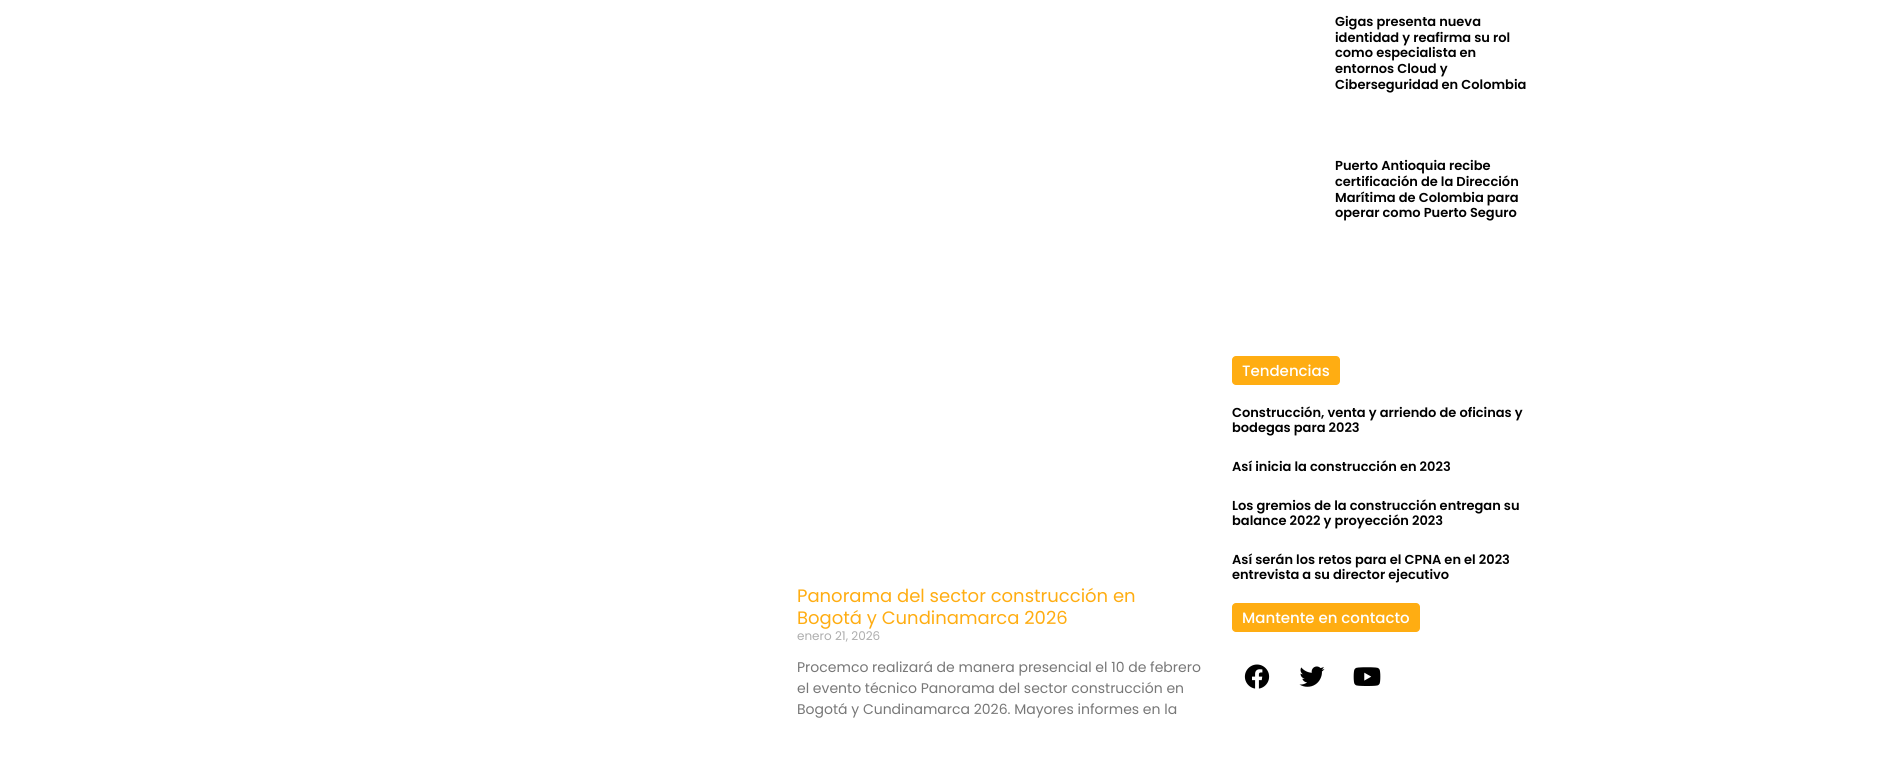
import math
import cairo


def round_path(ctx, x, y, w, h, r):
	ctx.new_sub_path()
	for i, (u, v) in enumerate([(x + w - r, y + h - r), (x + r, y + h - r), (x + r, y + r), (x + w - r, y + r)]):
		ctx.arc(u, v, r, i * math.pi / 2, (i + 1) * math.pi / 2)
	ctx.close_path()

def paste(ctx, path, x, y, w, h):
	ctx.save()
	ctx.set_source_surface(cairo.ImageSurface.create_from_png(path), x, y)
	ctx.rectangle(x, y, w, h)
	ctx.fill()
	ctx.restore()

def draw(ctx):
	ctx.set_source_rgb(1, 1, 1)
	ctx.paint()
	ctx.select_font_face('Poppins SemiBold')
	ctx.set_font_size(13)
	ctx.set_source_rgb(0, 0, 0)
	for x, y, s in [
		(1335, 26, 'Gigas presenta nueva'),
		(1335, 42, 'identidad y reafirma su rol'),
		(1335, 57, 'como especialista en'),
		(1335, 73, 'entornos Cloud y'),
		(1335, 89, 'Ciberseguridad en Colombia'),
		(1335, 170, 'Puerto Antioquia recibe'),
		(1335, 186, 'certificación de la Dirección'),
		(1335, 202, 'Marítima de Colombia para'),
		(1335, 217, 'operar como Puerto Seguro'),
	]:
		ctx.move_to(x, y)
		ctx.show_text(s)
	ctx.set_source_rgb(1, 0.678, 0.071)
	round_path(ctx, 1232, 356, 108, 29, 4)
	ctx.fill()
	ctx.select_font_face('Poppins Medium')
	ctx.set_font_size(15)
	ctx.set_source_rgb(1, 1, 1)
	ctx.move_to(1242, 376)
	ctx.show_text('Tendencias')
	ctx.select_font_face('Poppins SemiBold')
	ctx.set_font_size(13)
	ctx.set_source_rgb(0, 0, 0)
	for x, y, s in [
		(1232, 417, 'Construcción, venta y arriendo de oficinas y'),
		(1232, 432, 'bodegas para 2023'),
		(1232, 471, 'Así inicia la construcción en 2023'),
		(1232, 510, 'Los gremios de la construcción entregan su'),
		(1232, 525, 'balance 2022 y proyección 2023'),
		(1232, 564, 'Así serán los retos para el CPNA en el 2023'),
		(1232, 579, 'entrevista a su director ejecutivo'),
	]:
		ctx.move_to(x, y)
		ctx.show_text(s)
	ctx.set_source_rgb(1, 0.678, 0.071)
	round_path(ctx, 1232, 603, 188, 29, 4)
	ctx.fill()
	ctx.select_font_face('Poppins Medium')
	ctx.set_font_size(15)
	ctx.set_source_rgb(1, 1, 1)
	ctx.move_to(1242, 623)
	ctx.show_text('Mantente en contacto')
	paste(ctx, 'media/1.png', 1244, 664, 26, 25)
	paste(ctx, 'media/2.png', 1299, 666, 26, 21)
	paste(ctx, 'media/3.png', 1353, 667, 28, 19)
	ctx.select_font_face('Poppins')
	ctx.set_font_size(18)
	ctx.set_source_rgb(1, 0.678, 0.071)
	ctx.move_to(797, 602)
	ctx.show_text('Panorama del sector construcción en')
	ctx.move_to(797, 624)
	ctx.show_text('Bogotá y Cundinamarca 2026')
	ctx.set_font_size(12)
	ctx.set_source_rgb(0.678, 0.678, 0.678)
	ctx.move_to(797, 640)
	ctx.show_text('enero 21, 2026')
	ctx.set_font_size(14)
	ctx.set_source_rgb(0.467, 0.467, 0.467)
	for x, y, s in [
		(797, 672, 'Procemco realizará de manera presencial el 10 de febrero'),
		(797, 693, 'el evento técnico Panorama del sector construcción en'),
		(797, 714, 'Bogotá y Cundinamarca 2026. Mayores informes en la'),
	]:
		ctx.move_to(x, y)
		ctx.show_text(s)


surface = cairo.ImageSurface(cairo.FORMAT_RGB24, 1899, 780)
ctx = cairo.Context(surface)
options = cairo.FontOptions()
options.set_hint_metrics(cairo.HINT_METRICS_OFF)
options.set_hint_style(cairo.HINT_STYLE_NONE)
ctx.set_font_options(options)
ctx.set_miter_limit(4)
draw(ctx)
surface.write_to_png('image.png')
